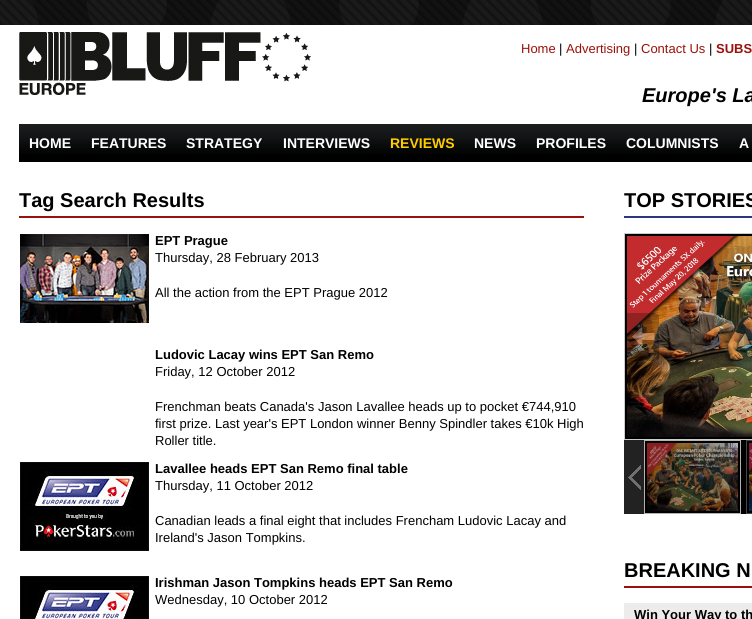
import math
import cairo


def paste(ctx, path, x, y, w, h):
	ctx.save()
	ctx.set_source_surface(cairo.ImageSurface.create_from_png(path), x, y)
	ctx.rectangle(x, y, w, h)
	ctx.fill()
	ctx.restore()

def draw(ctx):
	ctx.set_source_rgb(1, 1, 1)
	ctx.paint()
	paste(ctx, 'media/1.png', 0, 0, 752, 25)
	paste(ctx, 'media/2.png', 0, 0, 752, 25)
	paste(ctx, 'media/3.png', 19, 32, 292, 63)
	ctx.select_font_face('Liberation Sans')
	ctx.set_font_size(13)
	ctx.set_source_rgb(0.604, 0.067, 0.043)
	ctx.move_to(521, 53)
	ctx.show_text('Home')
	ctx.set_source_rgb(0, 0, 0)
	ctx.move_to(559, 53)
	ctx.show_text('|')
	ctx.set_source_rgb(0.604, 0.067, 0.043)
	ctx.move_to(566, 53)
	ctx.show_text('Advertising')
	ctx.set_source_rgb(0, 0, 0)
	ctx.move_to(634, 53)
	ctx.show_text('|')
	ctx.set_source_rgb(0.604, 0.067, 0.043)
	ctx.move_to(641, 53)
	ctx.show_text('Contact Us')
	ctx.set_source_rgb(0, 0, 0)
	ctx.move_to(709, 53)
	ctx.show_text('|')
	ctx.select_font_face('Liberation Sans', cairo.FONT_SLANT_NORMAL, cairo.FONT_WEIGHT_BOLD)
	ctx.set_source_rgb(0.604, 0.067, 0.043)
	ctx.move_to(716, 53)
	ctx.show_text('SUBS')
	ctx.select_font_face('Liberation Sans', cairo.FONT_SLANT_ITALIC, cairo.FONT_WEIGHT_BOLD)
	ctx.set_font_size(20)
	ctx.set_source_rgb(0, 0, 0)
	ctx.move_to(642, 102)
	ctx.show_text('Europe\'s La')
	ctx.rectangle(19, 154, 733, 8)
	ctx.fill()
	paste(ctx, 'media/4.png', 19, 124, 733, 30)
	ctx.select_font_face('Liberation Sans', cairo.FONT_SLANT_NORMAL, cairo.FONT_WEIGHT_BOLD)
	ctx.set_font_size(14)
	ctx.set_source_rgb(1, 1, 1)
	for x, y, s in [
		(29, 148, 'HOME'),
		(91, 148, 'FEATURES'),
		(186, 148, 'STRATEGY'),
		(283, 148, 'INTERVIEWS'),
	]:
		ctx.move_to(x, y)
		ctx.show_text(s)
	ctx.set_source_rgb(1, 0.8, 0)
	ctx.move_to(390, 148)
	ctx.show_text('REVIEWS')
	ctx.set_source_rgb(1, 1, 1)
	for x, y, s in [
		(474, 148, 'NEWS'),
		(536, 148, 'PROFILES'),
		(626, 148, 'COLUMNISTS'),
		(739, 148, 'A'),
	]:
		ctx.move_to(x, y)
		ctx.show_text(s)
	ctx.set_source_rgb(0.604, 0.067, 0.043)
	ctx.rectangle(19, 216, 565, 2)
	ctx.fill()
	ctx.set_font_size(20)
	ctx.set_source_rgb(0, 0, 0)
	ctx.move_to(19, 207)
	ctx.show_text('Tag Search Results')
	paste(ctx, 'media/5.png', 20, 234, 129, 89)
	ctx.set_font_size(13)
	ctx.move_to(155, 245)
	ctx.show_text('EPT Prague')
	ctx.select_font_face('Liberation Sans')
	ctx.move_to(155, 262)
	ctx.show_text('Thursday, 28 February 2013')
	ctx.move_to(155, 297)
	ctx.show_text('All the action from the EPT Prague 2012')
	ctx.select_font_face('Liberation Sans', cairo.FONT_SLANT_NORMAL, cairo.FONT_WEIGHT_BOLD)
	ctx.move_to(155, 359)
	ctx.show_text('Ludovic Lacay wins EPT San Remo')
	ctx.select_font_face('Liberation Sans')
	for x, y, s in [
		(155, 376, 'Friday, 12 October 2012'),
		(155, 411, 'Frenchman beats Canada\'s Jason Lavallee heads up to pocket €744,910'),
		(155, 428, 'first prize. Last year\'s EPT London winner Benny Spindler takes €10k High'),
		(155, 445, 'Roller title.'),
	]:
		ctx.move_to(x, y)
		ctx.show_text(s)
	paste(ctx, 'media/6.png', 20, 462, 129, 89)
	ctx.select_font_face('Liberation Sans', cairo.FONT_SLANT_NORMAL, cairo.FONT_WEIGHT_BOLD)
	ctx.move_to(155, 473)
	ctx.show_text('Lavallee heads EPT San Remo final table')
	ctx.select_font_face('Liberation Sans')
	for x, y, s in [
		(155, 490, 'Thursday, 11 October 2012'),
		(155, 525, 'Canadian leads a final eight that includes Frencham Ludovic Lacay and'),
		(155, 542, 'Ireland\'s Jason Tompkins.'),
	]:
		ctx.move_to(x, y)
		ctx.show_text(s)
	paste(ctx, 'media/7.png', 20, 576, 129, 43)
	ctx.select_font_face('Liberation Sans', cairo.FONT_SLANT_NORMAL, cairo.FONT_WEIGHT_BOLD)
	ctx.move_to(155, 587)
	ctx.show_text('Irishman Jason Tompkins heads EPT San Remo')
	ctx.select_font_face('Liberation Sans')
	ctx.move_to(155, 604)
	ctx.show_text('Wednesday, 10 October 2012')
	ctx.set_source_rgb(0.176, 0.212, 0.498)
	ctx.rectangle(624, 216, 128, 2)
	ctx.fill()
	ctx.select_font_face('Liberation Sans', cairo.FONT_SLANT_NORMAL, cairo.FONT_WEIGHT_BOLD)
	ctx.set_font_size(20)
	ctx.set_source_rgb(0, 0, 0)
	ctx.move_to(624, 207)
	ctx.show_text('TOP STORIES')
	ctx.rectangle(624.5, 233.5, 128, 206)
	ctx.fill_preserve()
	ctx.set_source_rgb(0.8, 0.8, 0.8)
	ctx.set_line_width(1)
	ctx.stroke()
	paste(ctx, 'media/8.png', 627, 236, 125, 201)
	paste(ctx, 'media/9.png', 627, 313, 32, 48)
	ctx.set_source_rgb(0.133, 0.133, 0.133)
	ctx.rectangle(624, 440, 20, 74)
	ctx.fill()
	paste(ctx, 'media/10.png', 628, 465, 13, 25)
	ctx.set_source_rgb(0, 0, 0)
	ctx.rectangle(645, 440, 107, 74)
	ctx.fill()
	ctx.rectangle(644.5, 440.5, 96, 73)
	ctx.set_source_rgb(0.702, 0.702, 0.702)
	ctx.stroke()
	ctx.rectangle(746.5, 440.5, 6, 73)
	ctx.set_source_rgb(0.278, 0.278, 0.278)
	ctx.stroke()
	paste(ctx, 'media/11.png', 647, 443, 91, 68)
	paste(ctx, 'media/12.png', 749, 443, 3, 68)
	ctx.set_source_rgb(0.604, 0.067, 0.043)
	ctx.rectangle(624, 586, 128, 2)
	ctx.fill()
	ctx.set_source_rgb(0, 0, 0)
	ctx.move_to(624, 577)
	ctx.show_text('BREAKING N')
	ctx.set_source_rgb(0.925, 0.925, 0.925)
	ctx.rectangle(624, 603, 128, 16)
	ctx.fill()
	ctx.set_font_size(13)
	ctx.set_source_rgb(0, 0, 0)
	ctx.move_to(634, 619)
	ctx.show_text('Win Your Way to th')


surface = cairo.ImageSurface(cairo.FORMAT_RGB24, 752, 619)
ctx = cairo.Context(surface)
options = cairo.FontOptions()
options.set_hint_metrics(cairo.HINT_METRICS_OFF)
options.set_hint_style(cairo.HINT_STYLE_NONE)
ctx.set_font_options(options)
ctx.set_miter_limit(4)
draw(ctx)
surface.write_to_png('image.png')
